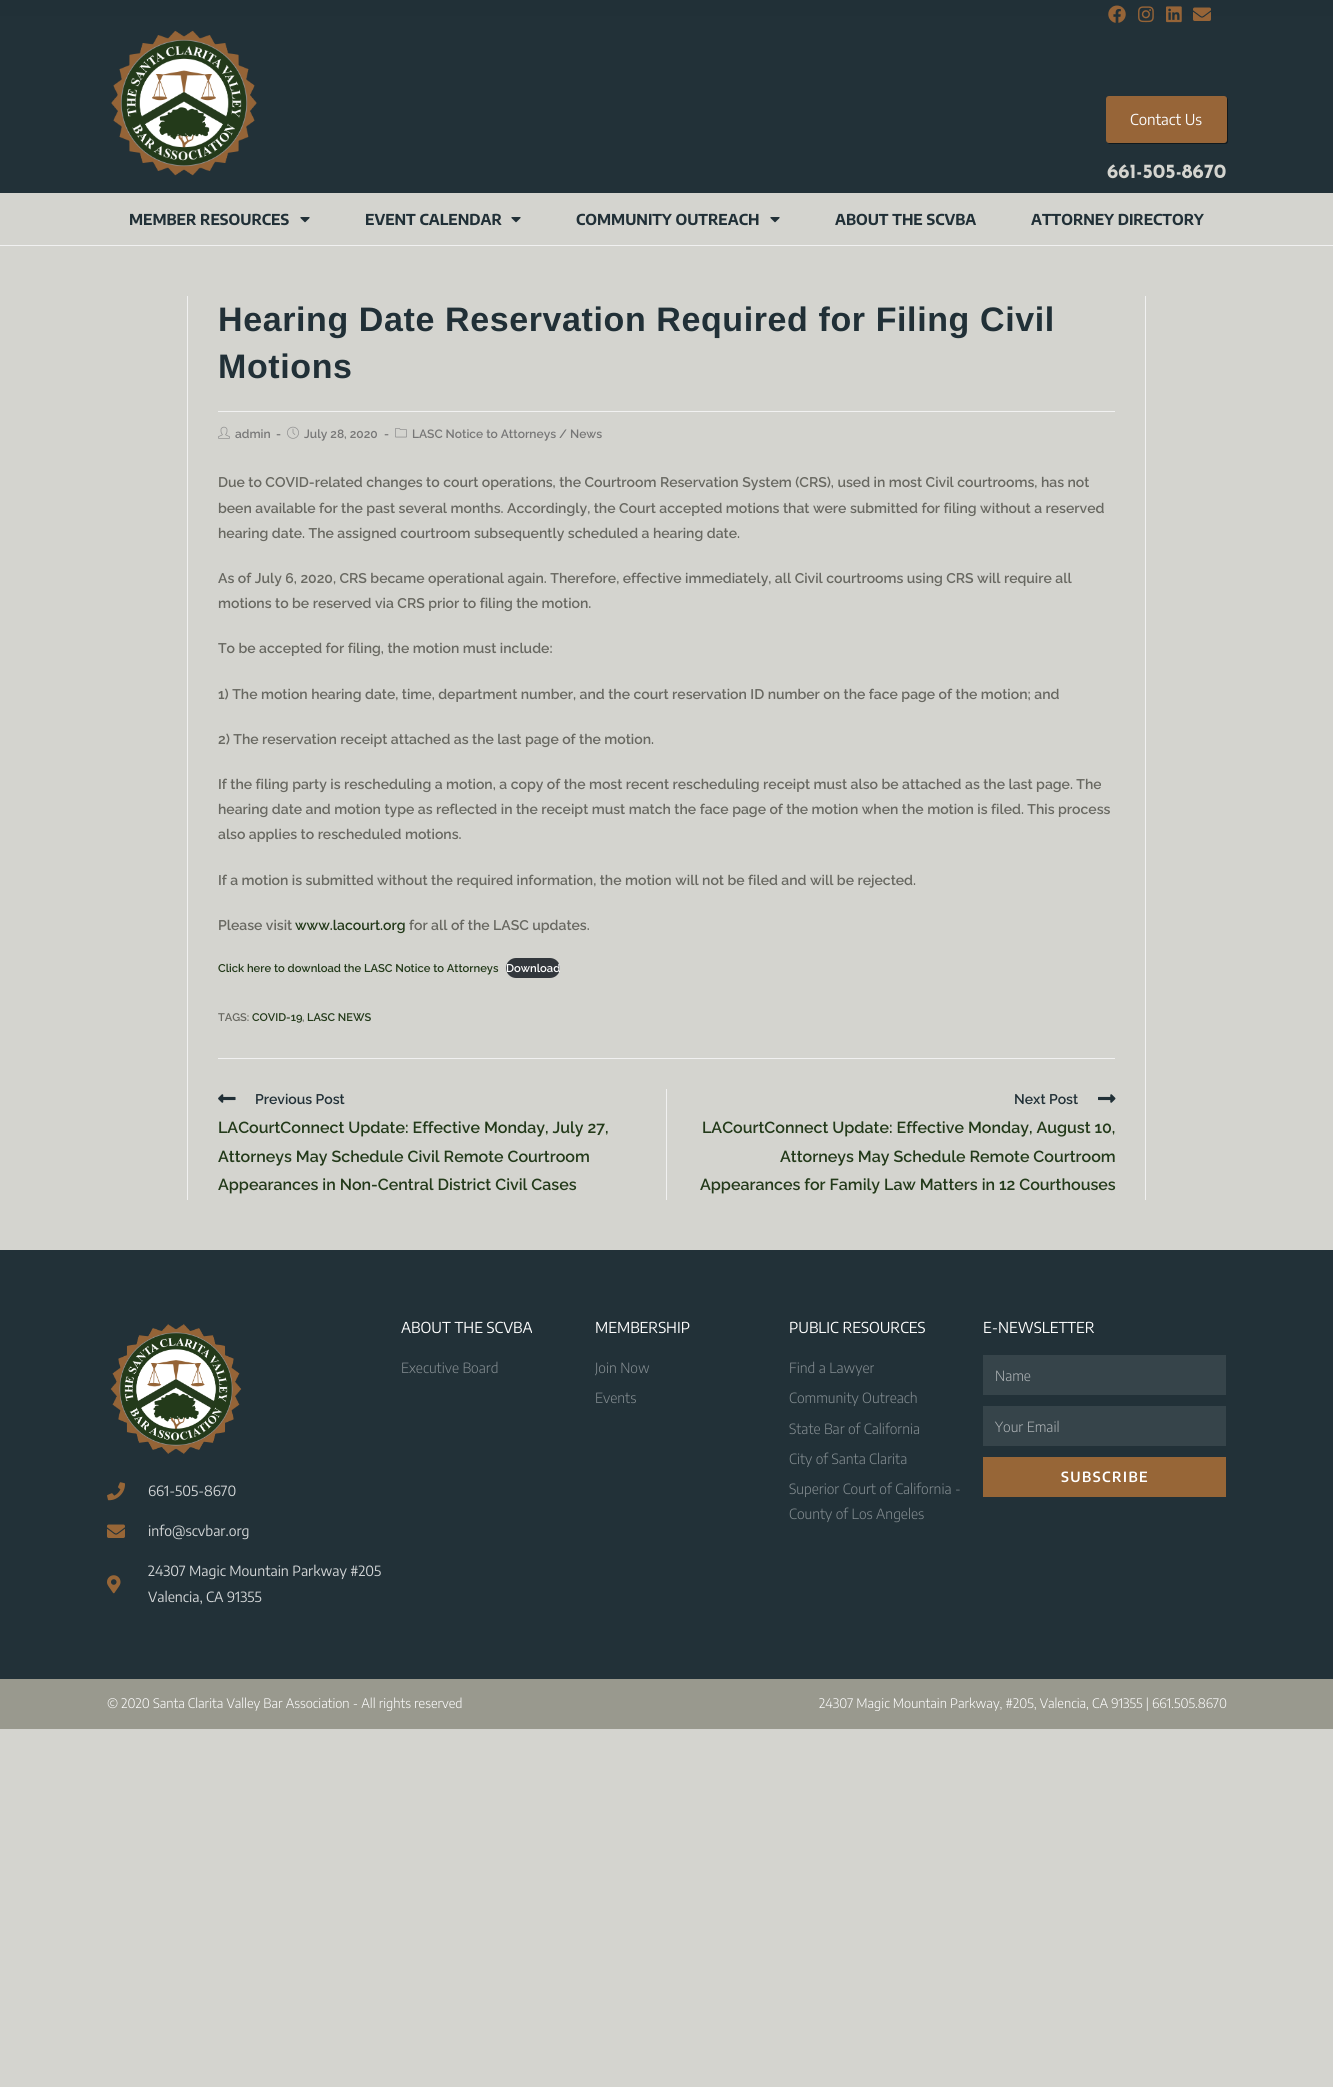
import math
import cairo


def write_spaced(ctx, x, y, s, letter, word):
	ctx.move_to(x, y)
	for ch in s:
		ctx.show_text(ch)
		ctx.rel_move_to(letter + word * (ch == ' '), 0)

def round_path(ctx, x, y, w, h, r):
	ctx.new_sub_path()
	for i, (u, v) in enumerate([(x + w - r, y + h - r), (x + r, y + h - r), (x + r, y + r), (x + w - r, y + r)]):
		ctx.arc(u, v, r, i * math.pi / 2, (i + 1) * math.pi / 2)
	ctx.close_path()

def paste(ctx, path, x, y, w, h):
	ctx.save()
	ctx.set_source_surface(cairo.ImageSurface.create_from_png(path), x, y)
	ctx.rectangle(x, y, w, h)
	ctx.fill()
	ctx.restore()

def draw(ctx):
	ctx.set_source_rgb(0.831, 0.831, 0.812)
	ctx.paint()
	ctx.set_source_rgb(0.129, 0.188, 0.216)
	ctx.rectangle(0, 0, 1333, 16)
	ctx.fill()
	ctx.set_source_rgb(0.133, 0.192, 0.22)
	ctx.rectangle(0, 16, 1333, 177)
	ctx.fill()
	paste(ctx, 'media/1.png', 1108, 5, 18, 18)
	paste(ctx, 'media/2.png', 1138, 6, 16, 17)
	paste(ctx, 'media/3.png', 1166, 6, 16, 17)
	paste(ctx, 'media/4.png', 1193, 7, 18, 14)
	ctx.set_source_rgb(0.945, 0.945, 0.945)
	ctx.rectangle(0, 245, 1333, 1)
	ctx.fill()
	paste(ctx, 'media/5.png', 111, 30, 146, 146)
	ctx.set_source_rgb(0.067, 0.098, 0.11)
	ctx.new_path()
	ctx.move_to(1107, 143)
	ctx.curve_to(1108, 143, 1109, 144, 1110, 144)
	ctx.line_to(1225, 144)
	ctx.curve_to(1227, 144, 1228, 143, 1228, 141)
	ctx.line_to(1228, 100)
	ctx.curve_to(1228, 99, 1227, 98, 1227, 97)
	ctx.line_to(1227, 99)
	ctx.line_to(1227, 140)
	ctx.curve_to(1227, 142, 1226, 143, 1224, 143)
	ctx.line_to(1109, 143)
	ctx.close_path()
	ctx.fill()
	ctx.set_source_rgb(0.592, 0.396, 0.22)
	round_path(ctx, 1106, 96, 121, 47, 3)
	ctx.fill()
	ctx.select_font_face('Encode Sans Condensed')
	ctx.set_font_size(15)
	ctx.set_source_rgb(0.976, 0.976, 0.976)
	ctx.move_to(1130, 125)
	ctx.show_text('Contact Us')
	ctx.select_font_face('Josefin Sans', cairo.FONT_SLANT_NORMAL, cairo.FONT_WEIGHT_BOLD)
	ctx.set_font_size(20)
	ctx.set_source_rgb(0.831, 0.831, 0.812)
	ctx.move_to(1107, 178)
	ctx.show_text('661-505-8670')
	ctx.select_font_face('Encode Sans Condensed', cairo.FONT_SLANT_NORMAL, cairo.FONT_WEIGHT_BOLD)
	ctx.set_font_size(15)
	ctx.set_source_rgb(0.129, 0.188, 0.216)
	ctx.move_to(129, 225)
	ctx.show_text('MEMBER RESOURCES')
	paste(ctx, 'media/6.png', 300, 217, 10, 6)
	ctx.move_to(365, 225)
	ctx.show_text('EVENT CALENDAR')
	paste(ctx, 'media/6.png', 511, 217, 10, 6)
	ctx.move_to(576, 225)
	ctx.show_text('COMMUNITY OUTREACH')
	paste(ctx, 'media/6.png', 770, 217, 10, 6)
	ctx.move_to(835, 225)
	ctx.show_text('ABOUT THE SCVBA')
	ctx.move_to(1031, 225)
	ctx.show_text('ATTORNEY DIRECTORY')
	ctx.set_source_rgb(0.945, 0.945, 0.945)
	ctx.rectangle(1145, 296, 1, 904)
	ctx.rectangle(187, 296, 1, 904)
	ctx.rectangle(218, 411, 897, 1)
	ctx.fill()
	ctx.select_font_face('Liberation Sans', cairo.FONT_SLANT_NORMAL, cairo.FONT_WEIGHT_BOLD)
	ctx.set_font_size(34)
	ctx.set_source_rgb(0.129, 0.188, 0.216)
	write_spaced(ctx, 218, 331, 'Hearing Date Reservation Required for Filing Civil', 0.6, 0)
	write_spaced(ctx, 218, 378, 'Motions', 0.6, 0)
	paste(ctx, 'media/7.png', 218, 426, 12, 13)
	ctx.select_font_face('Raleway SemiBold')
	ctx.set_font_size(12)
	ctx.set_source_rgb(0.467, 0.467, 0.467)
	ctx.move_to(235, 438)
	ctx.show_text('admin')
	ctx.move_to(276, 438)
	ctx.show_text('-')
	paste(ctx, 'media/8.png', 287, 426, 12, 13)
	ctx.move_to(304, 438)
	ctx.show_text('July 28, 2020')
	ctx.move_to(384, 438)
	ctx.show_text('-')
	paste(ctx, 'media/9.png', 395, 428, 12, 10)
	ctx.move_to(412, 438)
	ctx.show_text('LASC Notice to Attorneys / News')
	ctx.set_font_size(14)
	ctx.set_source_rgb(0.408, 0.408, 0.38)
	for x, y, s in [
		(218, 487, 'Due to COVID-related changes to court operations, the Courtroom Reservation System (CRS), used in most Civil courtrooms, has not'),
		(218, 513, 'been available for the past several months. Accordingly, the Court accepted motions that were submitted for filing without a reserved'),
		(218, 538, 'hearing date. The assigned courtroom subsequently scheduled a hearing date.'),
		(218, 583, 'As of July 6, 2020, CRS became operational again. Therefore, effective immediately, all Civil courtrooms using CRS will require all'),
		(218, 608, 'motions to be reserved via CRS prior to filing the motion.'),
		(218, 653, 'To be accepted for filing, the motion must include:'),
		(218, 699, '1) The motion hearing date, time, department number, and the court reservation ID number on the face page of the motion; and'),
		(218, 744, '2) The reservation receipt attached as the last page of the motion.'),
		(218, 789, 'If the filing party is rescheduling a motion, a copy of the most recent rescheduling receipt must also be attached as the last page. The'),
		(218, 814, 'hearing date and motion type as reflected in the receipt must match the face page of the motion when the motion is filed. This process'),
		(218, 839, 'also applies to rescheduled motions.'),
		(218, 885, 'If a motion is submitted without the required information, the motion will not be filed and will be rejected.'),
		(218, 930, 'Please visit'),
	]:
		ctx.move_to(x, y)
		ctx.show_text(s)
	ctx.set_source_rgb(0.137, 0.227, 0.102)
	ctx.move_to(295, 930)
	ctx.show_text('www.lacourt.org')
	ctx.set_source_rgb(0.408, 0.408, 0.38)
	ctx.move_to(409, 930)
	ctx.show_text('for all of the LASC updates.')
	ctx.set_font_size(11.2)
	ctx.set_source_rgb(0.137, 0.227, 0.102)
	ctx.move_to(218, 972)
	ctx.show_text('Click here to download the LASC Notice to Attorneys')
	ctx.set_source_rgb(0.196, 0.216, 0.235)
	round_path(ctx, 506, 958, 54, 20, 10)
	ctx.fill()
	ctx.set_source_rgb(1, 1, 1)
	ctx.move_to(506, 972)
	ctx.show_text('Download')
	ctx.set_font_size(11)
	ctx.set_source_rgb(0.408, 0.408, 0.38)
	ctx.move_to(218, 1021)
	ctx.show_text('TAGS:')
	ctx.set_source_rgb(0.137, 0.227, 0.102)
	ctx.move_to(252, 1021)
	ctx.show_text('COVID-19')
	ctx.set_source_rgb(0.408, 0.408, 0.38)
	ctx.move_to(302, 1021)
	ctx.show_text(',')
	ctx.set_source_rgb(0.137, 0.227, 0.102)
	ctx.move_to(307, 1021)
	ctx.show_text('LASC NEWS')
	ctx.set_source_rgb(0.945, 0.945, 0.945)
	ctx.rectangle(218, 1058, 897, 1)
	ctx.fill()
	ctx.rectangle(666, 1089, 1, 111)
	ctx.fill()
	paste(ctx, 'media/10.png', 218, 1094, 18, 9)
	ctx.set_font_size(14)
	ctx.set_source_rgb(0.129, 0.188, 0.216)
	ctx.move_to(255, 1104)
	ctx.show_text('Previous Post')
	ctx.set_font_size(16)
	ctx.set_source_rgb(0.137, 0.227, 0.102)
	for x, y, s in [
		(218, 1133, 'LACourtConnect Update: Effective Monday, July 27,'),
		(218, 1162, 'Attorneys May Schedule Civil Remote Courtroom'),
		(218, 1190, 'Appearances in Non-Central District Civil Cases'),
	]:
		ctx.move_to(x, y)
		ctx.show_text(s)
	ctx.set_font_size(14)
	ctx.set_source_rgb(0.129, 0.188, 0.216)
	ctx.move_to(1014, 1104)
	ctx.show_text('Next Post')
	paste(ctx, 'media/11.png', 1098, 1094, 18, 9)
	ctx.set_font_size(16)
	ctx.set_source_rgb(0.137, 0.227, 0.102)
	for x, y, s in [
		(702, 1133, 'LACourtConnect Update: Effective Monday, August 10,'),
		(780, 1162, 'Attorneys May Schedule Remote Courtroom'),
		(700, 1190, 'Appearances for Family Law Matters in 12 Courthouses'),
	]:
		ctx.move_to(x, y)
		ctx.show_text(s)
	ctx.set_source_rgb(0.133, 0.192, 0.22)
	ctx.rectangle(0, 1250, 1333, 429)
	ctx.fill()
	ctx.select_font_face('Encode Sans Condensed')
	ctx.set_font_size(15)
	ctx.set_source_rgb(1, 1, 1)
	ctx.move_to(401, 1333)
	ctx.show_text('ABOUT THE SCVBA')
	ctx.select_font_face('Encode Sans Condensed Light')
	ctx.set_font_size(14)
	ctx.set_source_rgb(0.522, 0.557, 0.573)
	ctx.move_to(401, 1373)
	ctx.show_text('Executive Board')
	ctx.select_font_face('Encode Sans Condensed')
	ctx.set_font_size(15)
	ctx.set_source_rgb(1, 1, 1)
	ctx.move_to(595, 1333)
	ctx.show_text('MEMBERSHIP')
	ctx.select_font_face('Encode Sans Condensed Light')
	ctx.set_font_size(14)
	ctx.set_source_rgb(0.522, 0.557, 0.573)
	ctx.move_to(595, 1373)
	ctx.show_text('Join Now')
	ctx.move_to(595, 1403)
	ctx.show_text('Events')
	ctx.select_font_face('Encode Sans Condensed')
	ctx.set_font_size(15)
	ctx.set_source_rgb(1, 1, 1)
	ctx.move_to(789, 1333)
	ctx.show_text('PUBLIC RESOURCES')
	ctx.select_font_face('Encode Sans Condensed Light')
	ctx.set_font_size(14)
	ctx.set_source_rgb(0.522, 0.557, 0.573)
	for x, y, s in [
		(789, 1373, 'Find a Lawyer'),
		(789, 1403, 'Community Outreach'),
		(789, 1434, 'State Bar of California'),
		(789, 1464, 'City of Santa Clarita'),
		(789, 1494, 'Superior Court of California -'),
		(789, 1519, 'County of Los Angeles'),
	]:
		ctx.move_to(x, y)
		ctx.show_text(s)
	ctx.select_font_face('Encode Sans Condensed')
	ctx.set_font_size(15)
	ctx.set_source_rgb(1, 1, 1)
	ctx.move_to(983, 1333)
	ctx.show_text('E-NEWSLETTER')
	ctx.set_source_rgb(0.212, 0.267, 0.29)
	ctx.rectangle(983, 1355, 243, 40)
	ctx.fill()
	ctx.select_font_face('Encode Sans Condensed Light')
	ctx.set_font_size(14)
	ctx.set_source_rgb(0.686, 0.706, 0.718)
	ctx.move_to(995, 1381)
	ctx.show_text('Name')
	ctx.set_source_rgb(0.212, 0.267, 0.29)
	ctx.rectangle(983, 1406, 243, 40)
	ctx.fill()
	ctx.set_source_rgb(0.686, 0.706, 0.718)
	ctx.move_to(995, 1432)
	ctx.show_text('Your Email')
	ctx.set_source_rgb(0.592, 0.4, 0.216)
	ctx.rectangle(983, 1457, 243, 40)
	ctx.fill()
	ctx.select_font_face('Encode Sans Condensed SemiBold')
	ctx.set_source_rgb(1, 1, 1)
	write_spaced(ctx, 1061, 1482, 'SUBSCRIBE', 1.5, 0)
	paste(ctx, 'media/12.png', 110, 1324, 132, 130)
	paste(ctx, 'media/13.png', 107, 1482, 18, 19)
	ctx.select_font_face('Encode Sans Condensed')
	ctx.set_source_rgb(0.827, 0.839, 0.843)
	ctx.move_to(148, 1496)
	ctx.show_text('661-505-8670')
	paste(ctx, 'media/14.png', 107, 1524, 18, 14)
	ctx.move_to(148, 1536)
	ctx.show_text('info@scvbar.org')
	paste(ctx, 'media/15.png', 107, 1575, 14, 19)
	ctx.move_to(148, 1576)
	ctx.show_text('24307 Magic Mountain Parkway #205')
	ctx.move_to(148, 1602)
	ctx.show_text('Valencia, CA 91355')
	ctx.set_source_rgb(0.6, 0.6, 0.557)
	ctx.rectangle(0, 1679, 1333, 50)
	ctx.fill()
	ctx.select_font_face('Encode Sans Condensed Light')
	ctx.set_font_size(13)
	ctx.set_source_rgb(1, 1, 1)
	ctx.move_to(107, 1708)
	ctx.show_text('© 2020 Santa Clarita Valley Bar Association - All rights reserved')
	ctx.move_to(819, 1708)
	ctx.show_text('24307 Magic Mountain Parkway, #205, Valencia, CA 91355 | 661.505.8670')


surface = cairo.ImageSurface(cairo.FORMAT_RGB24, 1333, 2087)
ctx = cairo.Context(surface)
options = cairo.FontOptions()
options.set_hint_metrics(cairo.HINT_METRICS_OFF)
options.set_hint_style(cairo.HINT_STYLE_NONE)
ctx.set_font_options(options)
ctx.set_miter_limit(4)
draw(ctx)
surface.write_to_png('image.png')
